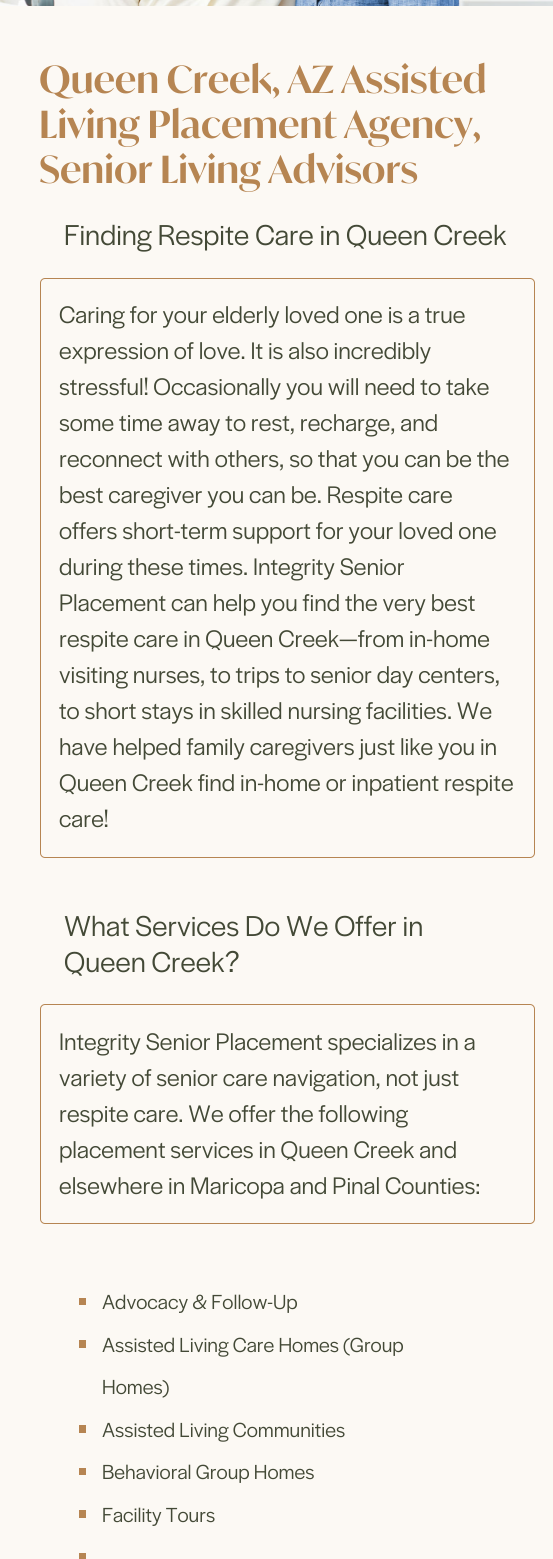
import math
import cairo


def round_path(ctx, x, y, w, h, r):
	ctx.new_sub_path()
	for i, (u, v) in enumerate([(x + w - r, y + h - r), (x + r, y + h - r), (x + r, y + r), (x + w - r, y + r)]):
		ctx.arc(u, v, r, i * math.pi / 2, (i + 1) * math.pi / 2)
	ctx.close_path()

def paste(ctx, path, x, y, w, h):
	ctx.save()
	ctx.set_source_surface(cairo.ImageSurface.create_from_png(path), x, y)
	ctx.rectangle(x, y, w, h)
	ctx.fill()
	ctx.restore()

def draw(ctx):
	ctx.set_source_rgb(1, 1, 1)
	ctx.paint()
	paste(ctx, 'media/1.png', 0, 0, 553, 6)
	ctx.set_source_rgb(0.988, 0.973, 0.957)
	ctx.rectangle(0, 6, 553, 1553)
	ctx.fill()
	ctx.select_font_face('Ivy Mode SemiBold')
	ctx.set_font_size(37.5)
	ctx.set_source_rgb(0.714, 0.522, 0.322)
	for x, y, s in [
		(39, 93, 'Queen Creek, AZ Assisted'),
		(39, 138, 'Living Placement Agency,'),
		(39, 183, 'Senior Living Advisors'),
	]:
		ctx.move_to(x, y)
		ctx.show_text(s)
	ctx.select_font_face('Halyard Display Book')
	ctx.set_font_size(30)
	ctx.set_source_rgb(0.263, 0.286, 0.212)
	ctx.move_to(64, 245)
	ctx.show_text('Finding Respite Care in Queen Creek')
	round_path(ctx, 40.5, 278.5, 494, 579, 4.5)
	ctx.set_source_rgb(0.714, 0.522, 0.322)
	ctx.set_line_width(1)
	ctx.stroke()
	ctx.set_font_size(25)
	ctx.set_source_rgb(0.263, 0.286, 0.212)
	for x, y, s in [
		(59, 323, 'Caring for your elderly loved one is a true'),
		(59, 359, 'expression of love. It is also incredibly'),
		(59, 395, 'stressful! Occasionally you will need to take'),
		(59, 431, 'some time away to rest, recharge, and'),
		(59, 467, 'reconnect with others, so that you can be the'),
		(59, 503, 'best caregiver you can be. Respite care'),
		(59, 539, 'offers short-term support for your loved one'),
		(59, 575, 'during these times. Integrity Senior'),
		(59, 611, 'Placement can help you find the very best'),
		(59, 647, 'respite care in Queen Creek—from in-home'),
		(59, 683, 'visiting nurses, to trips to senior day centers,'),
		(59, 719, 'to short stays in skilled nursing facilities. We'),
		(59, 755, 'have helped family caregivers just like you in'),
		(59, 791, 'Queen Creek find in-home or inpatient respite'),
		(59, 827, 'care!'),
	]:
		ctx.move_to(x, y)
		ctx.show_text(s)
	ctx.set_font_size(30)
	ctx.move_to(64, 936)
	ctx.show_text('What Services Do We Offer in')
	ctx.move_to(64, 972)
	ctx.show_text('Queen Creek?')
	round_path(ctx, 40.5, 1004.5, 494, 219, 4.5)
	ctx.set_source_rgb(0.714, 0.522, 0.322)
	ctx.stroke()
	ctx.set_font_size(25)
	ctx.set_source_rgb(0.263, 0.286, 0.212)
	for x, y, s in [
		(59, 1050, 'Integrity Senior Placement specializes in a'),
		(59, 1086, 'variety of senior care navigation, not just'),
		(59, 1122, 'respite care. We offer the following'),
		(59, 1158, 'placement services in Queen Creek and'),
		(59, 1194, 'elsewhere in Maricopa and Pinal Counties:'),
	]:
		ctx.move_to(x, y)
		ctx.show_text(s)
	ctx.set_source_rgb(0.714, 0.522, 0.322)
	ctx.rectangle(79, 1298, 7, 7)
	ctx.fill()
	ctx.set_font_size(21.25)
	ctx.set_source_rgb(0.263, 0.286, 0.212)
	ctx.move_to(102, 1309)
	ctx.show_text('Advocacy & Follow-Up')
	ctx.set_source_rgb(0.714, 0.522, 0.322)
	ctx.rectangle(79, 1340, 7, 8)
	ctx.fill()
	ctx.set_source_rgb(0.263, 0.286, 0.212)
	ctx.move_to(102, 1352)
	ctx.show_text('Assisted Living Care Homes (Group')
	ctx.move_to(102, 1394)
	ctx.show_text('Homes)')
	ctx.set_source_rgb(0.714, 0.522, 0.322)
	ctx.rectangle(79, 1425, 7, 8)
	ctx.fill()
	ctx.set_source_rgb(0.263, 0.286, 0.212)
	ctx.move_to(102, 1437)
	ctx.show_text('Assisted Living Communities')
	ctx.set_source_rgb(0.714, 0.522, 0.322)
	ctx.rectangle(79, 1468, 7, 7)
	ctx.fill()
	ctx.set_source_rgb(0.263, 0.286, 0.212)
	ctx.move_to(102, 1479)
	ctx.show_text('Behavioral Group Homes')
	ctx.set_source_rgb(0.714, 0.522, 0.322)
	ctx.rectangle(79, 1510, 7, 8)
	ctx.fill()
	ctx.set_source_rgb(0.263, 0.286, 0.212)
	ctx.move_to(102, 1522)
	ctx.show_text('Facility Tours')
	ctx.set_source_rgb(0.714, 0.522, 0.322)
	ctx.rectangle(79, 1553, 7, 6)
	ctx.fill()


surface = cairo.ImageSurface(cairo.FORMAT_RGB24, 553, 1559)
ctx = cairo.Context(surface)
options = cairo.FontOptions()
options.set_hint_metrics(cairo.HINT_METRICS_OFF)
options.set_hint_style(cairo.HINT_STYLE_NONE)
ctx.set_font_options(options)
ctx.set_miter_limit(4)
draw(ctx)
surface.write_to_png('image.png')
